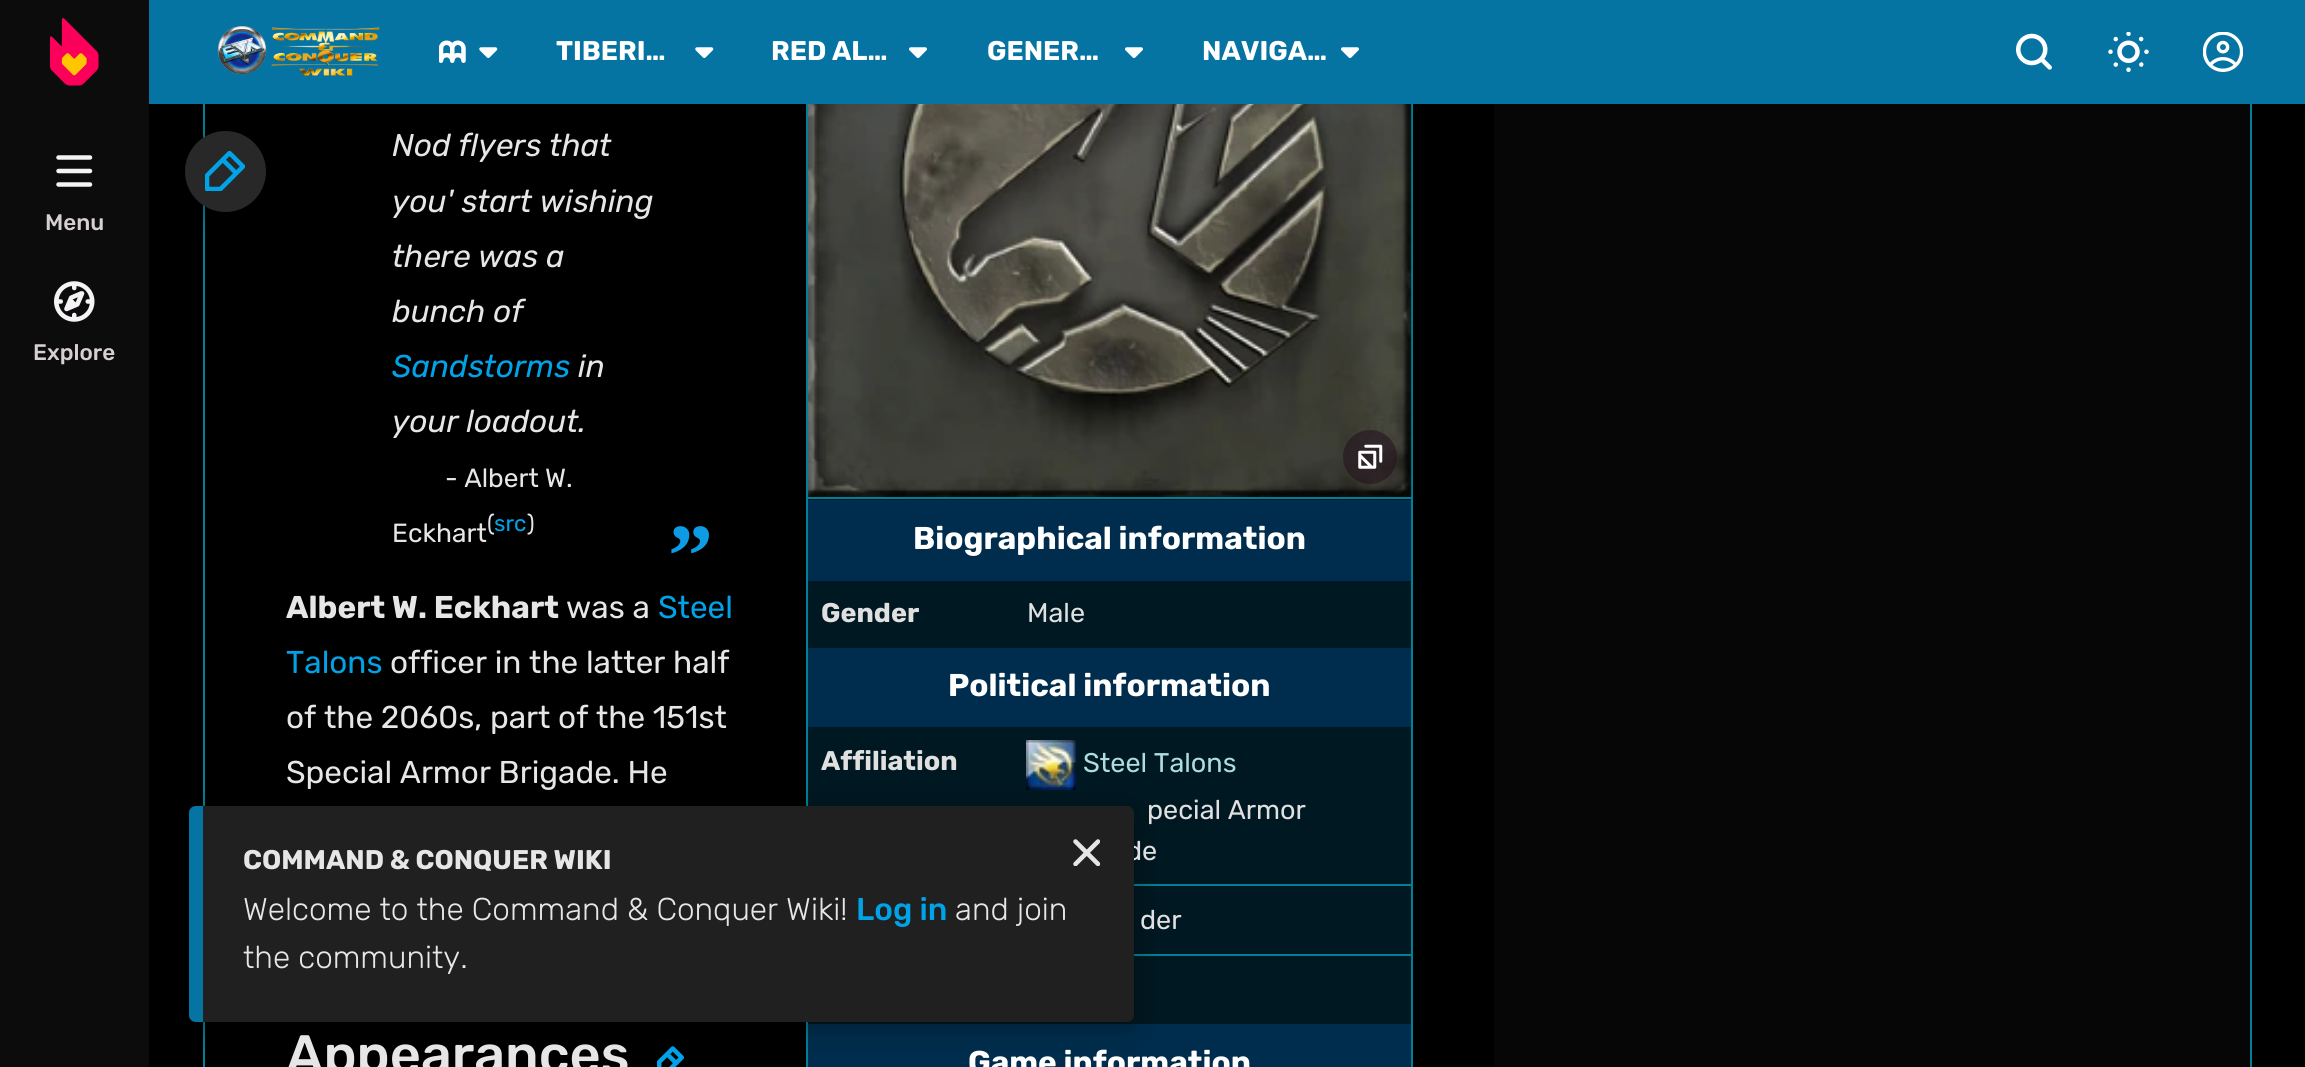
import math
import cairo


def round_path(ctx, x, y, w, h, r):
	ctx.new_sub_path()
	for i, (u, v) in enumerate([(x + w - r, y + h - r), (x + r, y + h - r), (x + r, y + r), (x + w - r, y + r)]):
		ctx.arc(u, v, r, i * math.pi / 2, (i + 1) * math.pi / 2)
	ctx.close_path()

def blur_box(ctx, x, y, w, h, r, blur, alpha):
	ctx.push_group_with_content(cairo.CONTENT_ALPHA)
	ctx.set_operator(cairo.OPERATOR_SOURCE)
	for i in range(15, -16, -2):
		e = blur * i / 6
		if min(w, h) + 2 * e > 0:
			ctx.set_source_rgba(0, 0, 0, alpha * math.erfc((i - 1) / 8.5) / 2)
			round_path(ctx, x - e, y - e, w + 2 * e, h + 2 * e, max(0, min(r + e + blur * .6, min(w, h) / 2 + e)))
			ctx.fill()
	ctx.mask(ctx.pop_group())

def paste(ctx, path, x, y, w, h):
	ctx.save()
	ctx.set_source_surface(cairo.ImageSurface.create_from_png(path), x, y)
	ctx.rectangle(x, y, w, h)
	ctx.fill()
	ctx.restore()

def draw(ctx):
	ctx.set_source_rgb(0, 0, 0)
	ctx.paint()
	ctx.rectangle(204, -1, 2047, 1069)
	ctx.set_source_rgb(0.004, 0.498, 0.588)
	ctx.stroke()
	ctx.set_source_rgb(0, 0, 0)
	blur_box(ctx, 185, 137, 81, 81, 40.5, 13.5, 0.3)
	ctx.set_source_rgb(0, 0.094, 0.129)
	ctx.rectangle(808, 104, 603, 920)
	ctx.fill()
	ctx.rectangle(807, -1, 605, 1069)
	ctx.set_source_rgb(0.004, 0.498, 0.588)
	ctx.stroke()
	ctx.set_source_rgb(0.02, 0.455, 0.639)
	ctx.rectangle(149, 0, 2156, 104)
	ctx.fill()
	paste(ctx, 'media/14.png', 1026, 740, 51, 50)
	ctx.set_source_rgb(0.004, 0.498, 0.588)
	ctx.rectangle(1134, 884, 277, 2)
	ctx.rectangle(1134, 954, 277, 2)
	ctx.fill()
	ctx.set_source_rgb(0, 0.176, 0.302)
	ctx.rectangle(808, 1024, 603, 43)
	ctx.fill()
	paste(ctx, 'media/15.png', 657, 1046, 27, 21)
	ctx.set_source_rgb(0, 0, 0)
	blur_box(ctx, 189, 812, 945, 216, 7, 13.5, 0.3)
	ctx.set_source_rgb(0.047, 0.047, 0.047)
	ctx.rectangle(0, 0, 149, 1067)
	ctx.fill()
	paste(ctx, 'media/1.png', 50, 18, 49, 68)
	paste(ctx, 'media/2.png', 217, 26, 163, 50)
	paste(ctx, 'media/3.png', 439, 40, 27, 23)
	paste(ctx, 'media/4.png', 479, 47, 19, 11)
	ctx.select_font_face('Rubik', cairo.FONT_SLANT_NORMAL, cairo.FONT_WEIGHT_BOLD)
	ctx.set_font_size(27)
	ctx.set_source_rgb(1, 1, 1)
	ctx.move_to(556, 60)
	ctx.show_text('TIBERI…')
	paste(ctx, 'media/4.png', 695, 47, 19, 11)
	ctx.move_to(771, 60)
	ctx.show_text('RED AL…')
	paste(ctx, 'media/5.png', 909, 47, 18, 11)
	ctx.move_to(987, 60)
	ctx.show_text('GENER…')
	paste(ctx, 'media/5.png', 1125, 47, 18, 11)
	ctx.move_to(1202, 60)
	ctx.show_text('NAVIGA…')
	paste(ctx, 'media/5.png', 1341, 47, 18, 11)
	paste(ctx, 'media/6.png', 2016, 33, 36, 37)
	paste(ctx, 'media/7.png', 2108, 32, 41, 40)
	paste(ctx, 'media/8.png', 2203, 32, 40, 40)
	paste(ctx, 'media/9.png', 56, 155, 37, 32)
	ctx.select_font_face('Rubik Medium')
	ctx.set_font_size(22.5)
	ctx.set_source_rgb(0.839, 0.816, 0.835)
	ctx.move_to(45, 230)
	ctx.show_text('Menu')
	paste(ctx, 'media/10.png', 54, 281, 41, 41)
	ctx.move_to(33, 360)
	ctx.show_text('Explore')
	ctx.set_source_rgb(0.157, 0.157, 0.157)
	ctx.new_path()
	ctx.arc(225.5, 171.5, 40.5, 0, 2 * math.pi)
	ctx.fill()
	paste(ctx, 'media/11.png', 205, 151, 40, 40)
	ctx.select_font_face('Rubik', cairo.FONT_SLANT_ITALIC)
	ctx.set_font_size(31.5)
	ctx.set_source_rgb(0.902, 0.902, 0.902)
	for x, y, s in [
		(392, 156, 'Nod flyers that'),
		(392, 212, 'you\' start wishing'),
		(392, 267, 'there was a'),
		(392, 322, 'bunch of'),
	]:
		ctx.move_to(x, y)
		ctx.show_text(s)
	ctx.set_source_rgb(0.004, 0.639, 0.91)
	ctx.move_to(392, 377)
	ctx.show_text('Sandstorms')
	ctx.set_source_rgb(0.902, 0.902, 0.902)
	ctx.move_to(578, 377)
	ctx.show_text('in')
	ctx.move_to(392, 432)
	ctx.show_text('your loadout.')
	ctx.select_font_face('Rubik')
	ctx.set_font_size(26.25)
	ctx.move_to(445, 487)
	ctx.show_text('- Albert W.')
	ctx.move_to(392, 542)
	ctx.show_text('Eckhart')
	ctx.set_font_size(22.5)
	ctx.move_to(487, 531)
	ctx.show_text('(')
	ctx.set_source_rgb(0.004, 0.639, 0.91)
	ctx.move_to(494, 531)
	ctx.show_text('src')
	ctx.set_source_rgb(0.902, 0.902, 0.902)
	ctx.move_to(527, 531)
	ctx.show_text(')')
	ctx.select_font_face('Liberation Serif', cairo.FONT_SLANT_NORMAL, cairo.FONT_WEIGHT_BOLD)
	ctx.set_font_size(90)
	ctx.set_source_rgb(0.051, 0.608, 0.89)
	ctx.move_to(668, 586)
	ctx.show_text('”')
	ctx.select_font_face('Rubik', cairo.FONT_SLANT_NORMAL, cairo.FONT_WEIGHT_BOLD)
	ctx.set_font_size(31.5)
	ctx.set_source_rgb(0.902, 0.902, 0.902)
	ctx.move_to(286, 618)
	ctx.show_text('Albert W. Eckhart')
	ctx.select_font_face('Rubik')
	ctx.move_to(566, 618)
	ctx.show_text('was a')
	ctx.set_source_rgb(0.004, 0.639, 0.91)
	ctx.move_to(658, 618)
	ctx.show_text('Steel')
	ctx.move_to(286, 673)
	ctx.show_text('Talons')
	ctx.set_source_rgb(0.902, 0.902, 0.902)
	for x, y, s in [
		(390, 673, 'officer in the latter half'),
		(286, 728, 'of the 2060s, part of the 151st'),
		(286, 783, 'Special Armor Brigade. He'),
	]:
		ctx.move_to(x, y)
		ctx.show_text(s)
	ctx.set_source_rgb(0.004, 0.498, 0.588)
	ctx.rectangle(808, 497, 603, 2)
	ctx.fill()
	paste(ctx, 'media/12.png', 808, 104, 604, 393)
	ctx.set_source_rgba(0.118, 0.047, 0.106, 0.5)
	ctx.arc(1370, 457, 27, 0, 2 * math.pi)
	ctx.fill()
	paste(ctx, 'media/13.png', 1358, 444, 25, 25)
	ctx.set_source_rgb(0, 0.176, 0.302)
	ctx.rectangle(808, 500, 603, 81)
	ctx.fill()
	ctx.select_font_face('Rubik', cairo.FONT_SLANT_NORMAL, cairo.FONT_WEIGHT_BOLD)
	ctx.set_source_rgb(1, 1, 1)
	ctx.move_to(913, 549)
	ctx.show_text('Biographical information')
	ctx.set_font_size(27)
	ctx.set_source_rgb(0.878, 0.878, 0.878)
	ctx.move_to(821, 622)
	ctx.show_text('Gender')
	ctx.select_font_face('Rubik')
	ctx.move_to(1027, 622)
	ctx.show_text('Male')
	ctx.set_source_rgb(0, 0.176, 0.302)
	ctx.rectangle(808, 648, 603, 79)
	ctx.fill()
	ctx.select_font_face('Rubik', cairo.FONT_SLANT_NORMAL, cairo.FONT_WEIGHT_BOLD)
	ctx.set_font_size(31.5)
	ctx.set_source_rgb(1, 1, 1)
	ctx.move_to(948, 696)
	ctx.show_text('Political information')
	ctx.set_font_size(27)
	ctx.set_source_rgb(0.878, 0.878, 0.878)
	ctx.move_to(821, 770)
	ctx.show_text('Affiliation')
	ctx.select_font_face('Rubik')
	ctx.set_source_rgb(0.678, 0.867, 0.875)
	ctx.move_to(1083, 772)
	ctx.show_text('Steel Talons')
	ctx.set_source_rgb(0.878, 0.878, 0.878)
	for x, y, s in [
		(1147, 819, 'pecial Armor'),
		(1126, 860, 'de'),
		(1140, 929, 'der'),
	]:
		ctx.move_to(x, y)
		ctx.show_text(s)
	ctx.select_font_face('Rubik', cairo.FONT_SLANT_NORMAL, cairo.FONT_WEIGHT_BOLD)
	ctx.set_font_size(31.5)
	ctx.set_source_rgb(1, 1, 1)
	ctx.move_to(968, 1073)
	ctx.show_text('Game information')
	ctx.select_font_face('Rubik Medium')
	ctx.set_font_size(54)
	ctx.set_source_rgb(0.902, 0.902, 0.902)
	ctx.move_to(286, 1073)
	ctx.show_text('Appearances')
	ctx.set_source_rgb(0.027, 0.027, 0.027)
	ctx.rectangle(1494, 104, 756, 963)
	ctx.fill()
	ctx.set_source_rgb(0.125, 0.125, 0.125)
	round_path(ctx, 189, 806, 945, 216, 7)
	ctx.fill()
	ctx.set_source_rgb(0.02, 0.455, 0.639)
	ctx.new_path()
	ctx.move_to(196, 806)
	ctx.line_to(203, 806)
	ctx.line_to(203, 1022)
	ctx.line_to(196, 1022)
	ctx.curve_to(192, 1022, 189, 1019, 189, 1015)
	ctx.line_to(189, 813)
	ctx.curve_to(189, 809, 192, 806, 196, 806)
	ctx.close_path()
	ctx.fill()
	ctx.select_font_face('Rubik', cairo.FONT_SLANT_NORMAL, cairo.FONT_WEIGHT_BOLD)
	ctx.set_font_size(27)
	ctx.set_source_rgb(0.902, 0.902, 0.902)
	ctx.move_to(243, 869)
	ctx.show_text('COMMAND & CONQUER WIKI')
	paste(ctx, 'media/16.png', 1073, 839, 27, 27)
	ctx.select_font_face('Rubik Light')
	ctx.set_font_size(31.5)
	ctx.move_to(243, 920)
	ctx.show_text('Welcome to the Command & Conquer Wiki!')
	ctx.select_font_face('Rubik Medium')
	ctx.set_source_rgb(0.004, 0.639, 0.91)
	ctx.move_to(856, 920)
	ctx.show_text('Log in')
	ctx.select_font_face('Rubik Light')
	ctx.set_source_rgb(0.902, 0.902, 0.902)
	ctx.move_to(955, 920)
	ctx.show_text('and join')
	ctx.move_to(243, 968)
	ctx.show_text('the community.')


surface = cairo.ImageSurface(cairo.FORMAT_RGB24, 2305, 1067)
ctx = cairo.Context(surface)
options = cairo.FontOptions()
options.set_hint_metrics(cairo.HINT_METRICS_OFF)
options.set_hint_style(cairo.HINT_STYLE_NONE)
ctx.set_font_options(options)
ctx.set_miter_limit(4)
draw(ctx)
surface.write_to_png('image.png')
